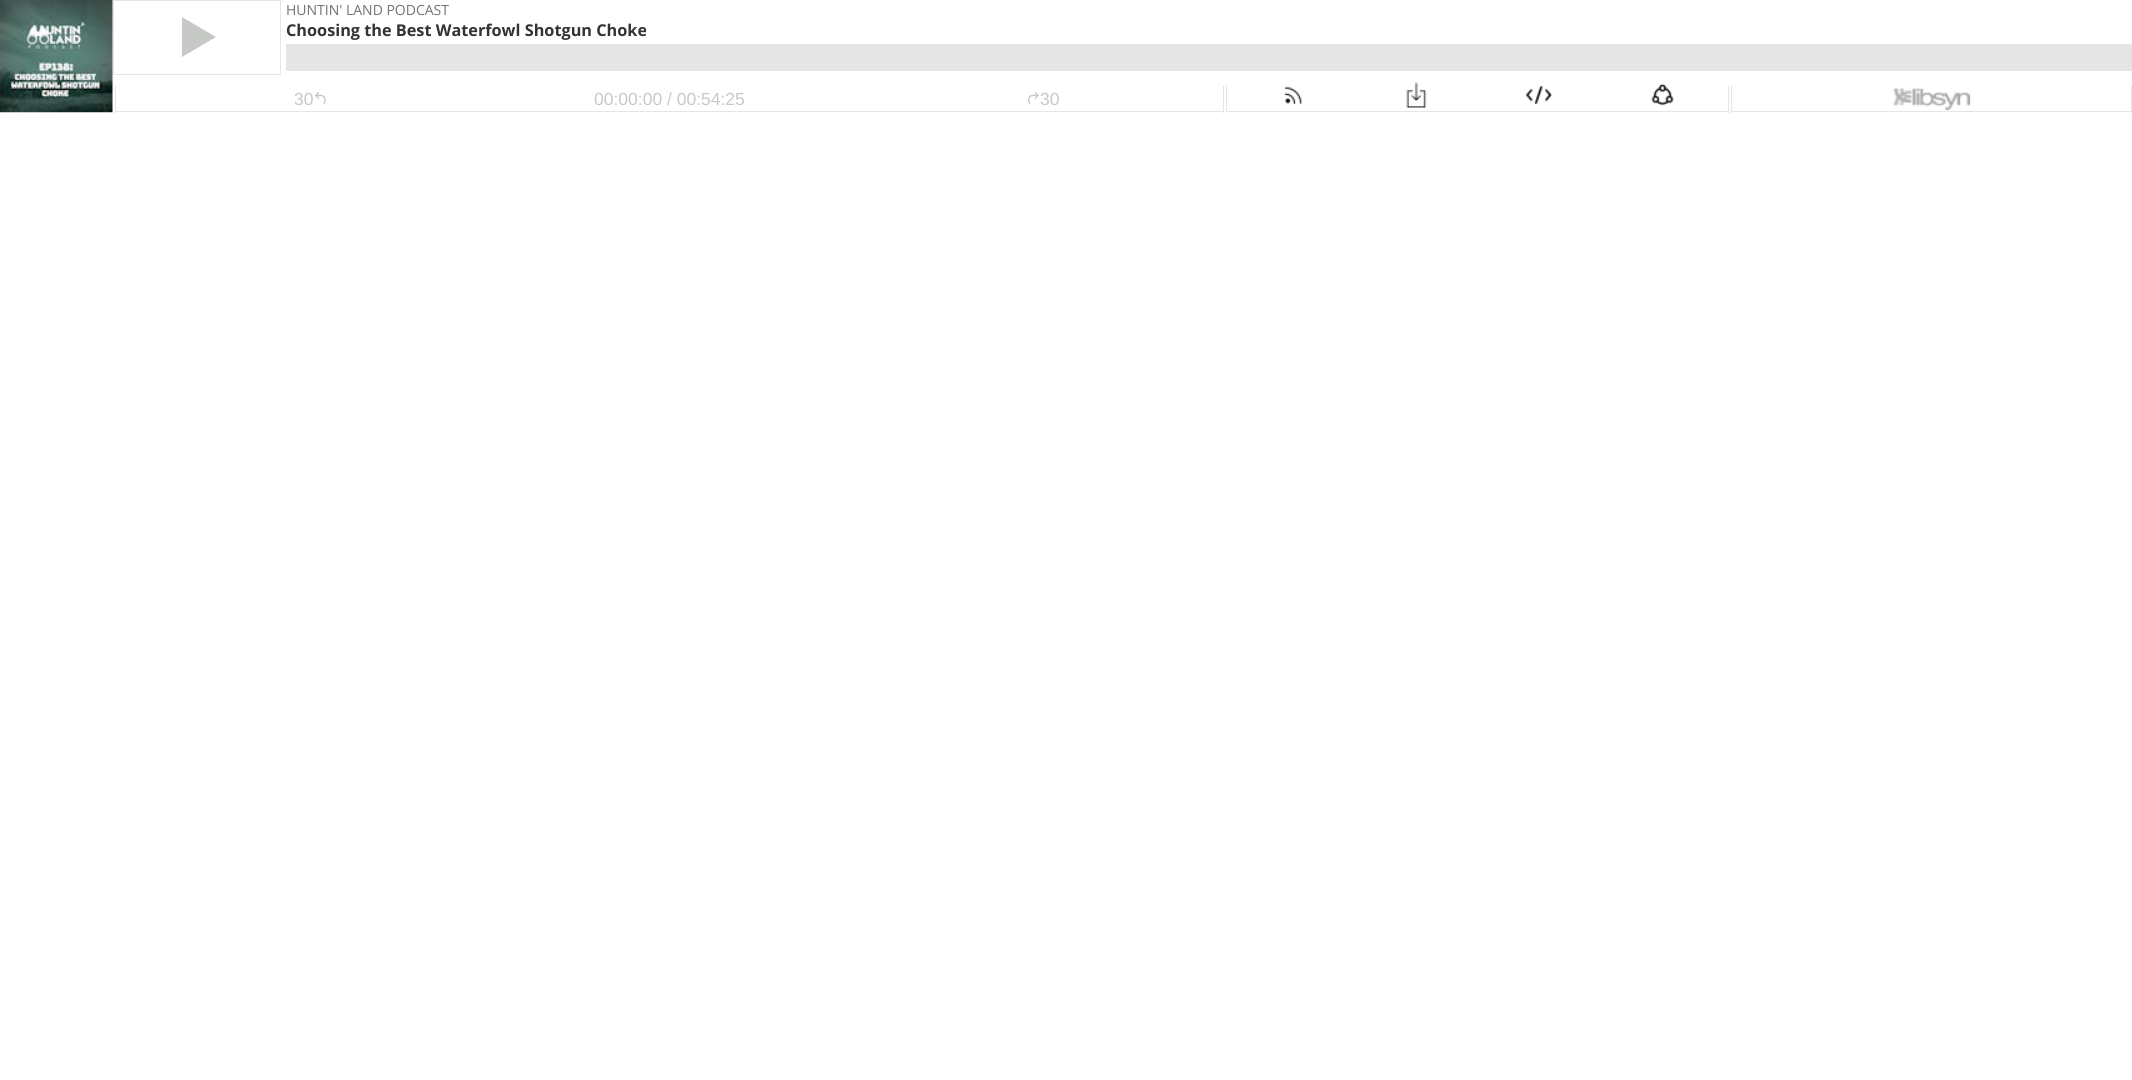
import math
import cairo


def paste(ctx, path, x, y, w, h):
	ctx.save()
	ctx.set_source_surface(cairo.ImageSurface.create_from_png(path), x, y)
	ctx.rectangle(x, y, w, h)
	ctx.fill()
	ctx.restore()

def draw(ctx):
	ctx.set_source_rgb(1, 1, 1)
	ctx.paint()
	paste(ctx, 'media/1.png', 0, 0, 113, 113)
	ctx.rectangle(113.5, 0.5, 167, 74)
	ctx.set_source_rgb(0.902, 0.898, 0.898)
	ctx.set_line_width(1)
	ctx.stroke()
	ctx.set_source_rgb(0.78, 0.788, 0.776)
	ctx.new_path()
	ctx.move_to(182, 17)
	ctx.line_to(182, 57)
	ctx.line_to(216, 37)
	ctx.close_path()
	ctx.fill()
	ctx.select_font_face('Open Sans')
	ctx.set_font_size(14)
	ctx.set_source_rgb(0.447, 0.447, 0.447)
	ctx.move_to(286, 15)
	ctx.show_text('HUNTIN\' LAND PODCAST')
	ctx.select_font_face('Open Sans', cairo.FONT_SLANT_NORMAL, cairo.FONT_WEIGHT_BOLD)
	ctx.set_font_size(16.25)
	ctx.set_source_rgb(0.2, 0.2, 0.2)
	ctx.move_to(286, 36)
	ctx.show_text('Choosing the Best Waterfowl Shotgun Choke')
	ctx.set_source_rgb(0.902, 0.898, 0.898)
	ctx.rectangle(286, 44, 1846, 27)
	ctx.rectangle(1223, 86, 1, 27)
	ctx.rectangle(115, 111, 1109, 1)
	ctx.rectangle(115, 86, 1, 27)
	ctx.fill()
	ctx.select_font_face('Liberation Sans')
	ctx.set_font_size(17.5)
	ctx.set_source_rgb(0.78, 0.788, 0.776)
	ctx.move_to(294, 105)
	ctx.show_text('30')
	paste(ctx, 'media/2.png', 315, 92, 11, 12)
	ctx.move_to(594, 105)
	ctx.show_text('00:00:00 / 00:54:25')
	paste(ctx, 'media/3.png', 1028, 92, 11, 12)
	ctx.move_to(1040, 105)
	ctx.show_text('30')
	ctx.set_source_rgb(0.902, 0.898, 0.898)
	ctx.rectangle(1728, 86, 1, 27)
	ctx.rectangle(1226, 111, 503, 1)
	ctx.rectangle(1226, 86, 1, 27)
	ctx.fill()
	paste(ctx, 'media/4.png', 1284, 86, 18, 19)
	paste(ctx, 'media/5.png', 1406, 82, 21, 26)
	paste(ctx, 'media/6.png', 1526, 86, 26, 18)
	paste(ctx, 'media/7.png', 1651, 83, 23, 23)
	paste(ctx, 'media/8.png', 1893, 87, 78, 24)
	ctx.rectangle(2131, 86, 1, 27)
	ctx.rectangle(1731, 111, 401, 1)
	ctx.rectangle(1731, 86, 1, 27)
	ctx.fill()


surface = cairo.ImageSurface(cairo.FORMAT_RGB24, 2132, 1080)
ctx = cairo.Context(surface)
options = cairo.FontOptions()
options.set_hint_metrics(cairo.HINT_METRICS_OFF)
options.set_hint_style(cairo.HINT_STYLE_NONE)
ctx.set_font_options(options)
ctx.set_miter_limit(4)
draw(ctx)
surface.write_to_png('image.png')
